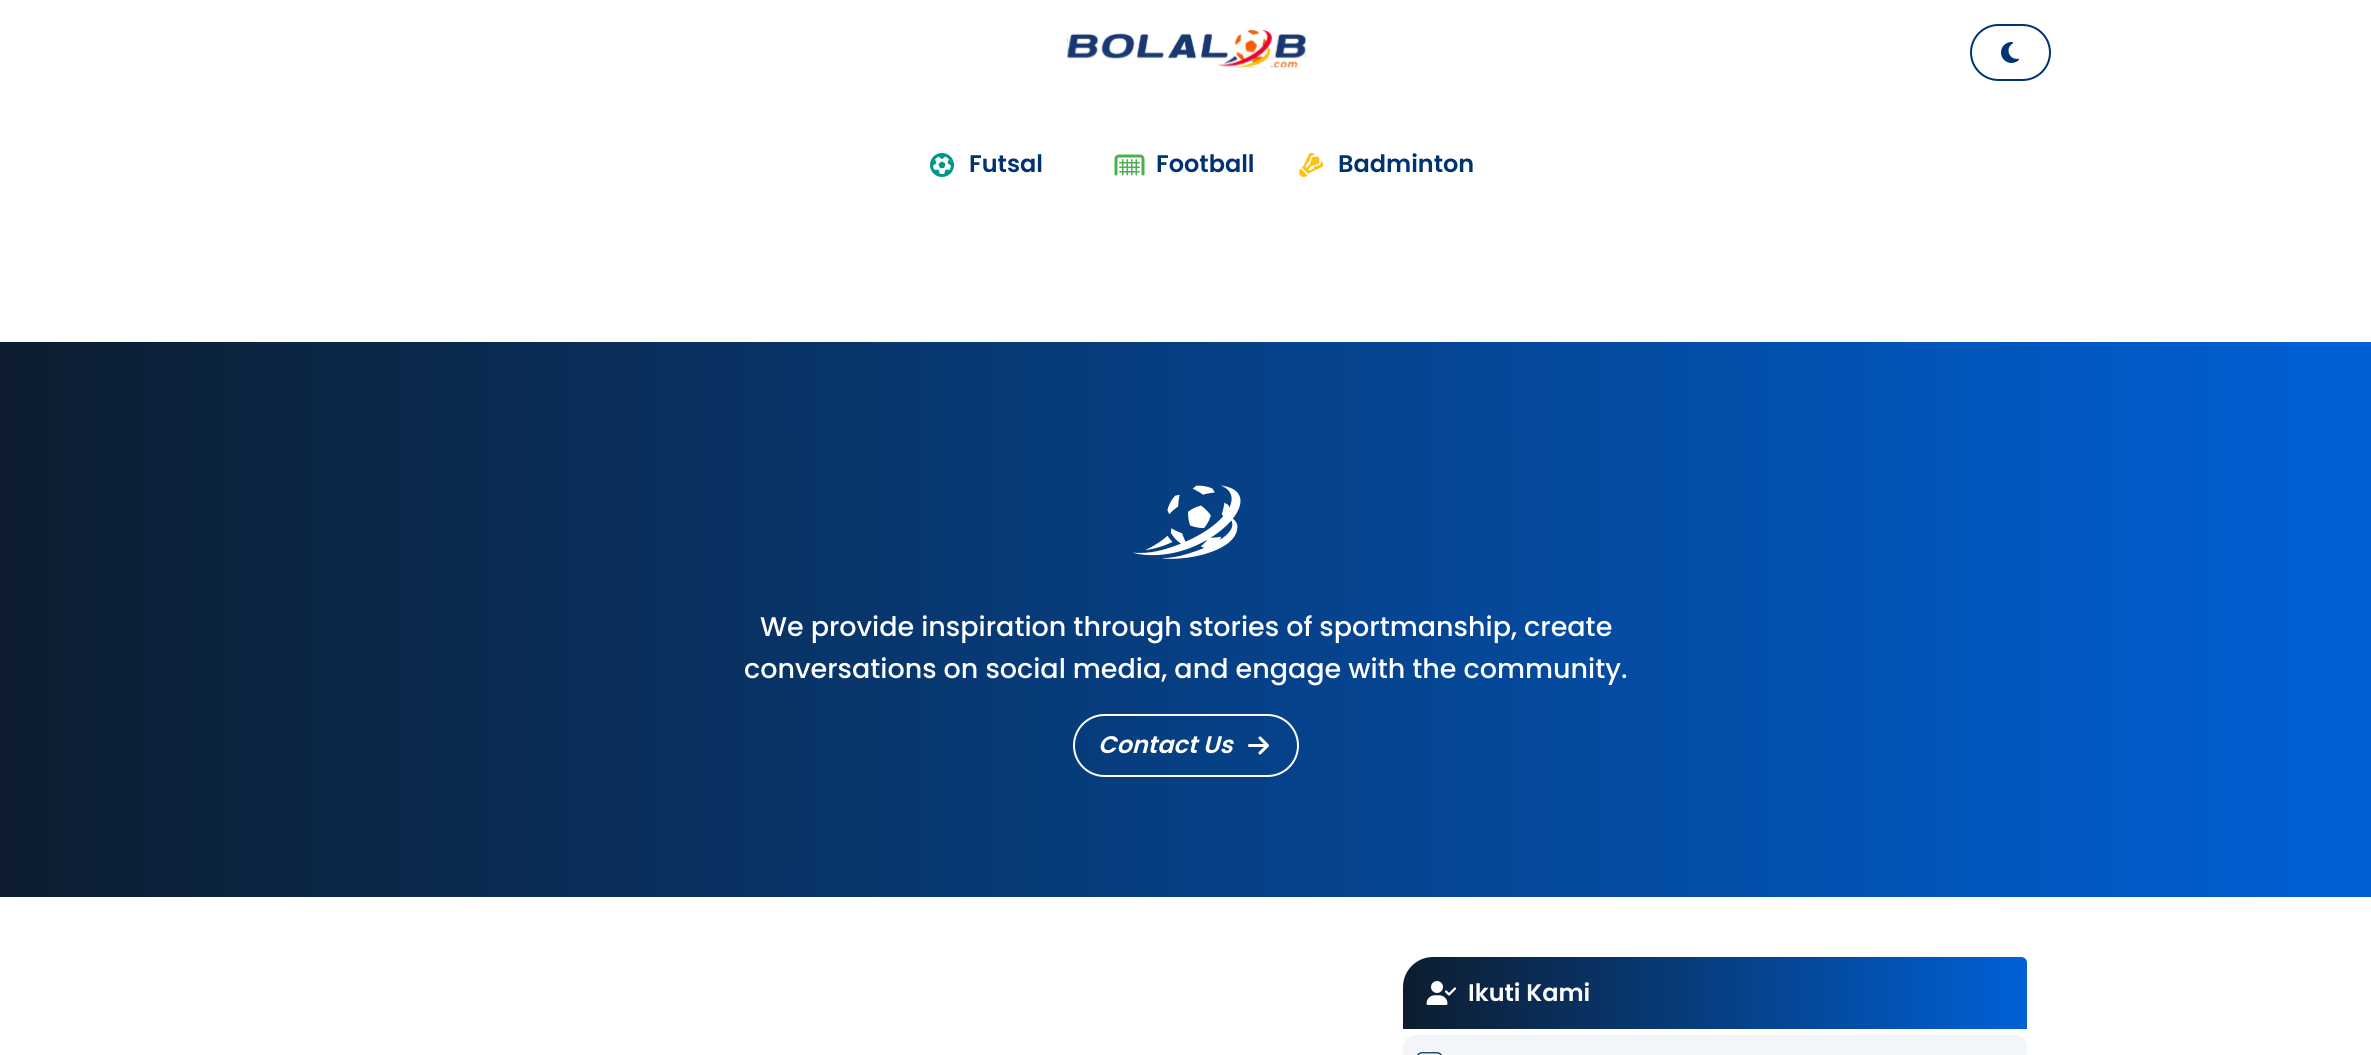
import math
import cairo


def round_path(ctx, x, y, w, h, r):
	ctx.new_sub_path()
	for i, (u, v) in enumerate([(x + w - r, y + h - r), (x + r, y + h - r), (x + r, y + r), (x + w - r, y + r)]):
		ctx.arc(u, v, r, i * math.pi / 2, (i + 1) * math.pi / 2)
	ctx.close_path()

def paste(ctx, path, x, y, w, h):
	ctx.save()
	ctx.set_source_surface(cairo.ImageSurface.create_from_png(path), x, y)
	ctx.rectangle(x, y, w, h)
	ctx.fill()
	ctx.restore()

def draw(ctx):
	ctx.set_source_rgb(1, 1, 1)
	ctx.paint()
	paste(ctx, 'media/1.png', 1067, 30, 239, 38)
	round_path(ctx, 1971, 25, 79, 55, 27.5)
	ctx.set_source_rgb(0, 0.2, 0.443)
	ctx.stroke()
	paste(ctx, 'media/2.png', 2001, 42, 18, 21)
	paste(ctx, 'media/3.png', 930, 153, 24, 24)
	ctx.select_font_face('Poppins SemiBold')
	ctx.set_font_size(24)
	ctx.move_to(969, 172)
	ctx.show_text('Futsal')
	paste(ctx, 'media/4.png', 1114, 154, 31, 22)
	ctx.move_to(1156, 172)
	ctx.show_text('Football')
	paste(ctx, 'media/5.png', 1299, 153, 24, 24)
	ctx.move_to(1338, 172)
	ctx.show_text('Badminton')
	gradient = cairo.LinearGradient(0, 620, 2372, 619)
	gradient.add_color_stop_rgba(0, 0.051, 0.114, 0.184, 1)
	gradient.add_color_stop_rgba(1, 0, 0.38, 0.843, 1)
	ctx.set_source(gradient)
	ctx.rectangle(0, 342, 2371, 555)
	ctx.fill()
	paste(ctx, 'media/6.png', 1132, 485, 109, 74)
	ctx.select_font_face('Poppins Medium')
	ctx.set_font_size(27)
	ctx.set_source_rgb(1, 1, 1)
	ctx.move_to(760, 636)
	ctx.show_text('We provide inspiration through stories of sportmanship, create')
	ctx.move_to(744, 678)
	ctx.show_text('conversations on social media, and engage with the community.')
	round_path(ctx, 1074, 715, 224, 61, 30.5)
	ctx.stroke()
	ctx.select_font_face('Poppins SemiBold', cairo.FONT_SLANT_ITALIC)
	ctx.set_font_size(24)
	ctx.move_to(1098, 753)
	ctx.show_text('Contact Us')
	paste(ctx, 'media/7.png', 1248, 736, 21, 19)
	gradient = cairo.LinearGradient(1403, 993, 2027, 993)
	gradient.add_color_stop_rgba(0, 0.051, 0.114, 0.184, 1)
	gradient.add_color_stop_rgba(1, 0, 0.38, 0.843, 1)
	ctx.set_source(gradient)
	ctx.new_path()
	ctx.move_to(1433, 957)
	ctx.line_to(2021, 957)
	ctx.curve_to(2024.5, 957, 2027, 959.5, 2027, 963)
	ctx.line_to(2027, 1029)
	ctx.line_to(1403, 1029)
	ctx.line_to(1403, 987)
	ctx.curve_to(1403, 970.5, 1416.5, 957, 1433, 957)
	ctx.close_path()
	ctx.fill()
	paste(ctx, 'media/8.png', 1426, 981, 31, 24)
	ctx.select_font_face('Poppins SemiBold')
	ctx.set_source_rgb(1, 1, 1)
	ctx.move_to(1468, 1001)
	ctx.show_text('Ikuti Kami')
	ctx.set_source_rgb(0.949, 0.961, 0.973)
	round_path(ctx, 1403, 1035, 624, 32, 12)
	ctx.fill()
	paste(ctx, 'media/9.png', 1417, 1052, 25, 3)


surface = cairo.ImageSurface(cairo.FORMAT_RGB24, 2371, 1055)
ctx = cairo.Context(surface)
options = cairo.FontOptions()
options.set_hint_metrics(cairo.HINT_METRICS_OFF)
options.set_hint_style(cairo.HINT_STYLE_NONE)
ctx.set_font_options(options)
ctx.set_miter_limit(4)
draw(ctx)
surface.write_to_png('image.png')
